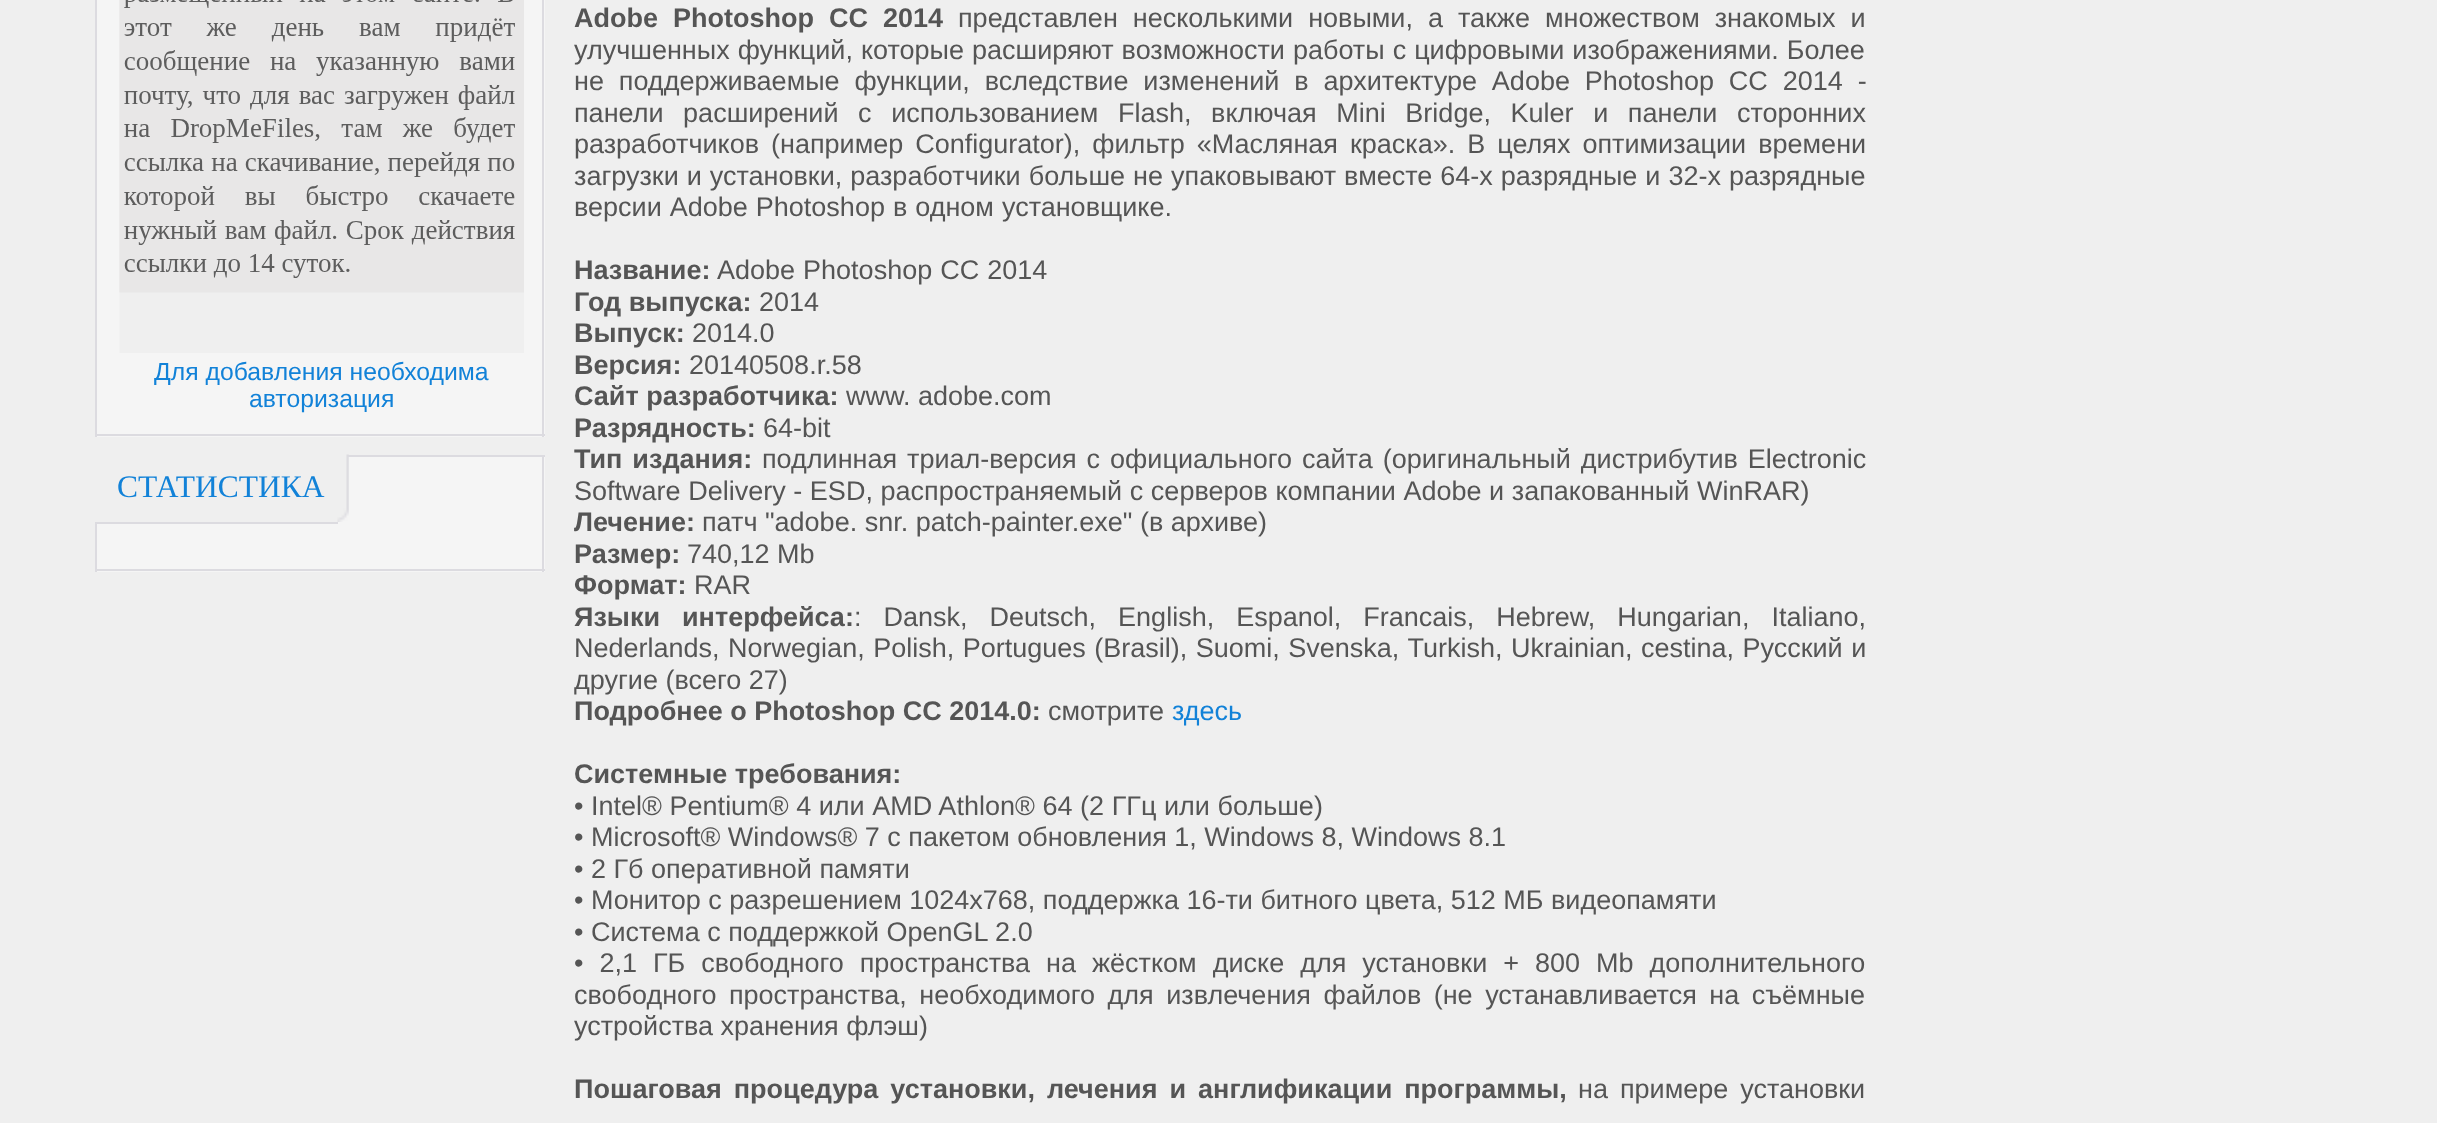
(async () => {
const canvas = document.querySelector("canvas")
canvas.width = 2437
canvas.height = 1123
const c = canvas.getContext("2d")
c.miterLimit = 4
c.fontKerning = "normal"
function T(s,x,y){c.fillText(s,x,y)}
function R(x,y,w,h){c.fillRect(x,y,w,h)}
async function I(src,x,y,w,h){const img=new Image();img.src=src;await img.decode();c.drawImage(img,x,y,w,h)}
c.fillStyle="#efefef"
R(0,0,2437,1123)
c.fillStyle="#f5f5f5"
R(97,0,448,437)
c.fillStyle="#dcdbe0"
R(542,0,2,437)
R(95,434,450,2)
R(95,0,2,437)
await I("1.png",119,0,405,353)
c.font="24.75px Liberation Sans"
c.fillStyle="#1282d8"
T("Для добавления необходима",154,380)
T("авторизация",249,407)
c.fillStyle="#f5f5f5"
R(97,457,448,115)
c.fillStyle="#dcdbe0"
R(348,455,197,2)
R(542,455,2,117)
c.fillStyle="#efefef"
R(97,457,241,65)
c.fillStyle="#dcdbe0"
R(95,522,243,2)
c.font="31.5px Liberation Serif"
c.fillStyle="#1282d8"
T("СТАТИСТИКА",117,497)
await I("2.png",337,454,12,68)
c.fillStyle="#dcdbe0"
R(95,569,450,2)
R(95,524,2,48)
c.wordSpacing="7.5px"
c.font="bold 27px Liberation Sans"
c.fillStyle="#555"
T("Adobe Photoshop CC 2014",574,27)
c.font="27px Liberation Sans"
T("представлен несколькими новыми, а также множеством знакомых и",958,27)
c.wordSpacing="0.5px"
T("улучшенных функций, которые расширяют возможности работы с цифровыми изображениями. Более",574,59)
c.wordSpacing="7.4px"
T("не поддерживаемые функции, вследствие изменений в архитектуре Adobe Photoshop CC 2014 -",574,90)
c.wordSpacing="12.1px"
T("панели расширений с использованием Flash, включая Mini Bridge, Kuler и панели сторонних",574,122)
c.wordSpacing="4.5px"
T("разработчиков (например Configurator), фильтр «Масляная краска». В целях оптимизации времени",574,153)
c.wordSpacing="0.5px"
T("загрузки и установки, разработчики больше не упаковывают вместе 64-х разрядные и 32-х разрядные",574,185)
T("версии Adobe Photoshop в одном установщике.",574,216)
c.wordSpacing="0px"
c.font="bold 27px Liberation Sans"
T("Название:",574,279)
c.wordSpacing="0.5px"
c.font="27px Liberation Sans"
T("Adobe Photoshop CC 2014",717,279)
c.wordSpacing="0px"
c.font="bold 27px Liberation Sans"
T("Год выпуска:",574,311)
c.font="27px Liberation Sans"
T("2014",759,311)
c.font="bold 27px Liberation Sans"
T("Выпуск:",574,342)
c.font="27px Liberation Sans"
T("2014.0",692,342)
c.font="bold 27px Liberation Sans"
T("Версия:",574,374)
c.font="27px Liberation Sans"
T("20140508.r.58",689,374)
c.font="bold 27px Liberation Sans"
T("Сайт разработчика:",574,405)
c.font="27px Liberation Sans"
T("www. adobe.com",846,405)
c.font="bold 27px Liberation Sans"
T("Разрядность:",574,437)
c.font="27px Liberation Sans"
T("64-bit",763,437)
c.wordSpacing="2.5px"
c.font="bold 27px Liberation Sans"
T("Тип издания:",574,468)
c.font="27px Liberation Sans"
T("подлинная триал-версия с официального сайта (оригинальный дистрибутив Electronic",762,468)
c.wordSpacing="0.1px"
T("Software Delivery - ESD, распространяемый с серверов компании Adobe и запакованный WinRAR)",574,500)
c.wordSpacing="0px"
c.font="bold 27px Liberation Sans"
T("Лечение:",574,531)
c.font="27px Liberation Sans"
T("патч \"adobe. snr. patch-painter.exe\" (в архиве)",702,531)
c.font="bold 27px Liberation Sans"
T("Размер:",574,563)
c.font="27px Liberation Sans"
T("740,12 Mb",687,563)
c.font="bold 27px Liberation Sans"
T("Формат:",574,594)
c.font="27px Liberation Sans"
T("RAR",694,594)
c.wordSpacing="14.5px"
c.font="bold 27px Liberation Sans"
T("Языки интерфейса:",574,626)
c.font="27px Liberation Sans"
T(": Dansk, Deutsch, English, Espanol, Francais, Hebrew, Hungarian, Italiano,",854,626)
c.wordSpacing="1px"
T("Nederlands, Norwegian, Polish, Portugues (Brasil), Suomi, Svenska, Turkish, Ukrainian, cestina, Русский и",574,657)
c.wordSpacing="0px"
T("другие (всего 27)",574,689)
c.font="bold 27px Liberation Sans"
T("Подробнее о Photoshop CC 2014.0:",574,720)
c.font="27px Liberation Sans"
T("смотрите",1048,720)
c.fillStyle="#1282d8"
T("здесь",1172,720)
c.font="bold 27px Liberation Sans"
c.fillStyle="#555"
T("Системные требования:",574,783)
c.wordSpacing="0.1px"
c.font="27px Liberation Sans"
T("• Intel® Pentium® 4 или AMD Athlon® 64 (2 ГГц или больше)",574,815)
c.wordSpacing="0px"
T("• Microsoft® Windows® 7 с пакетом обновления 1, Windows 8, Windows 8.1",574,846)
T("• 2 Гб оперативной памяти",574,878)
T("• Монитор с разрешением 1024x768, поддержка 16-ти битного цвета, 512 МБ видеопамяти",574,909)
T("• Система с поддержкой OpenGL 2.0",574,941)
c.wordSpacing="8.5px"
T("• 2,1 ГБ свободного пространства на жёстком диске для установки + 800 Mb дополнительного",574,972)
c.wordSpacing="5px"
T("свободного пространства, необходимого для извлечения файлов (не устанавливается на съёмные",574,1004)
c.wordSpacing="0px"
T("устройства хранения флэш)",574,1035)
c.wordSpacing="4.5px"
c.font="bold 27px Liberation Sans"
T("Пошаговая процедура установки, лечения и англификации программы,",574,1098)
c.font="27px Liberation Sans"
T("на примере установки",1578,1098)
})()
